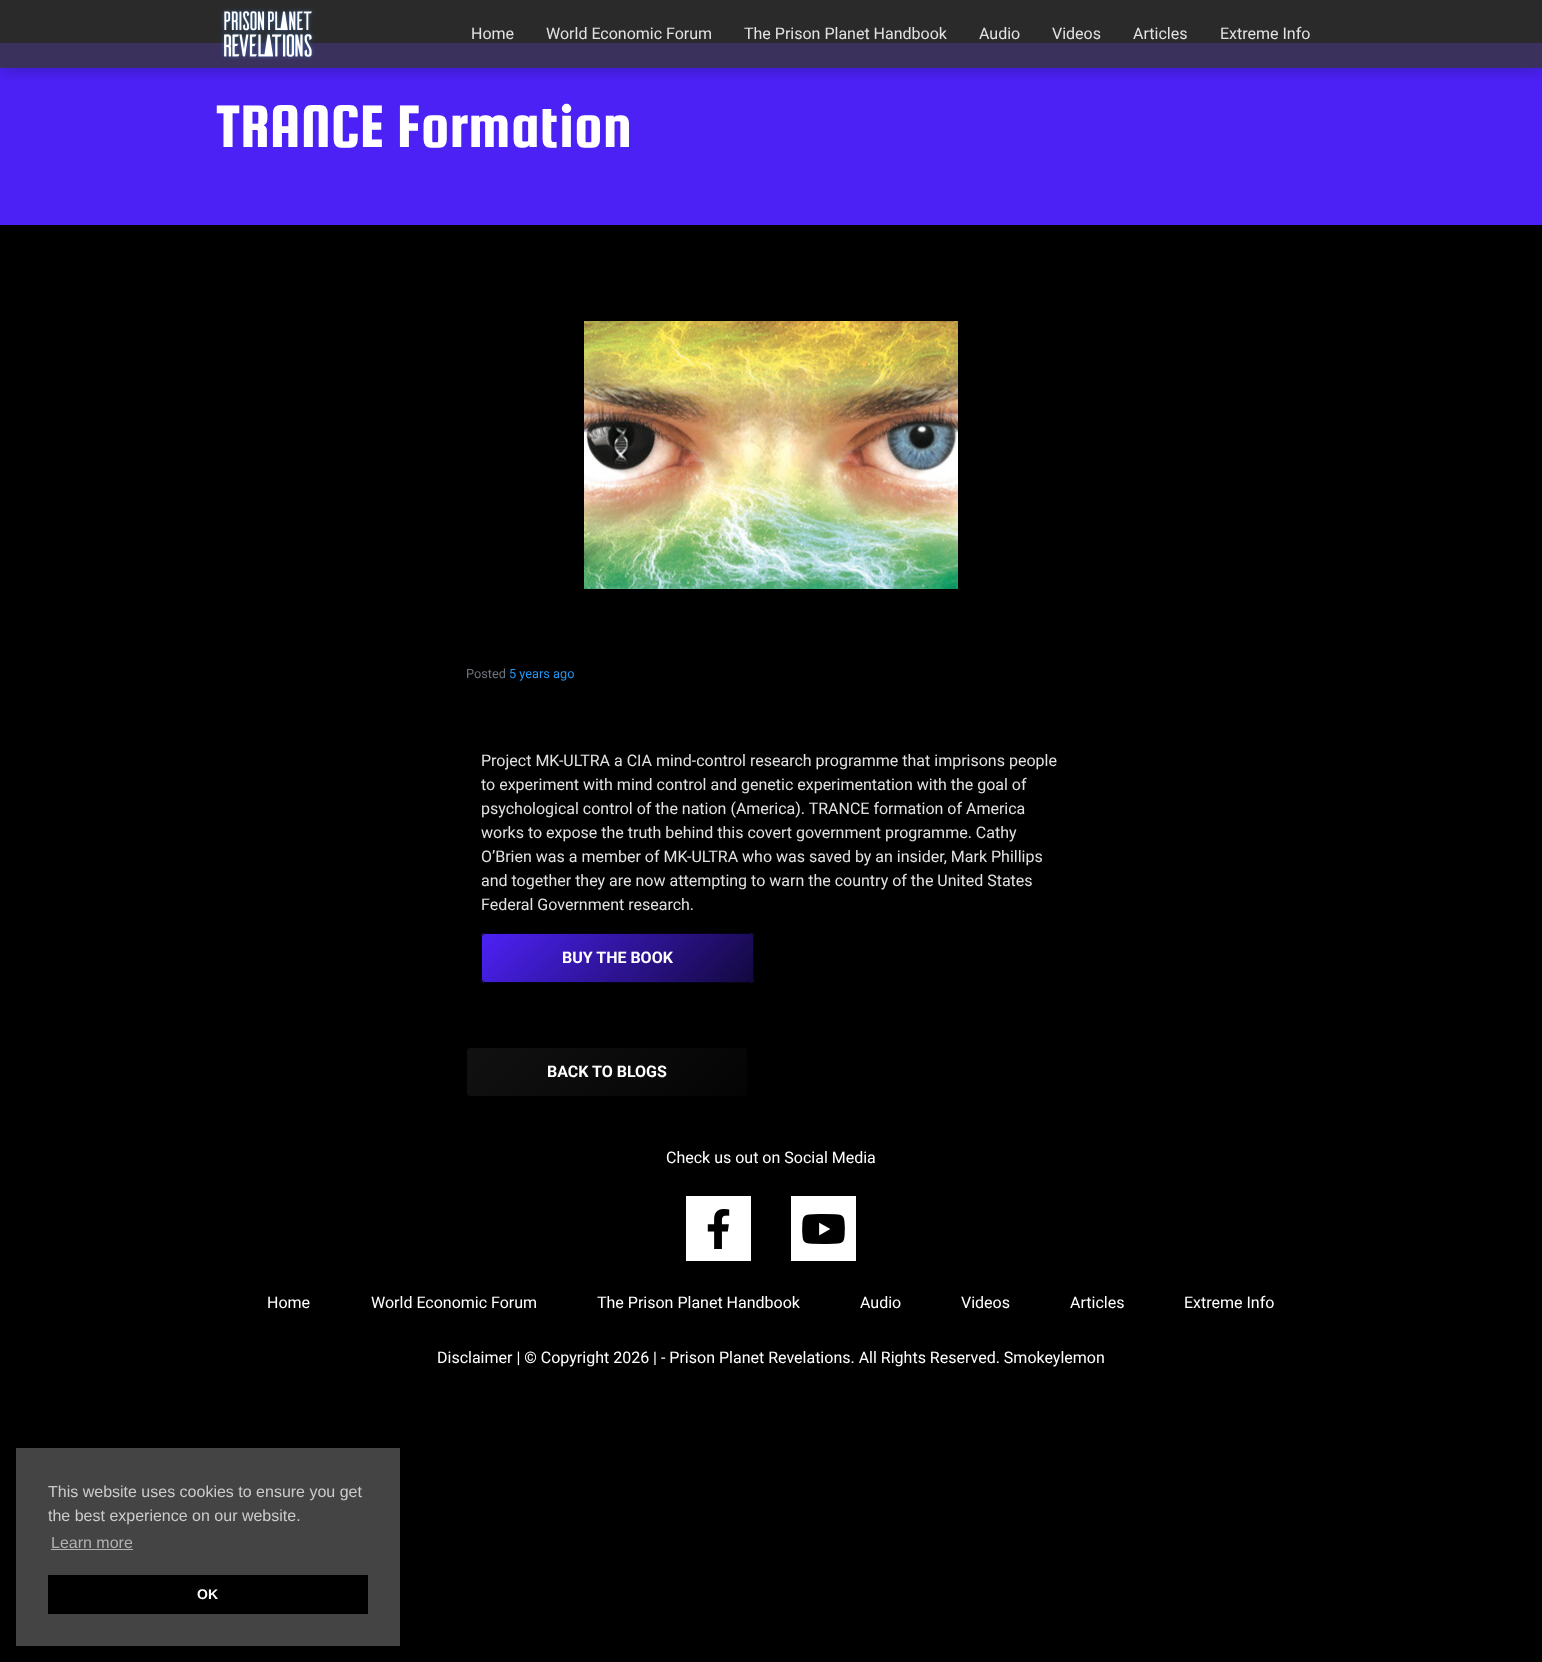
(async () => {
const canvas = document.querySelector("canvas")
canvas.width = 1542
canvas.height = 1662
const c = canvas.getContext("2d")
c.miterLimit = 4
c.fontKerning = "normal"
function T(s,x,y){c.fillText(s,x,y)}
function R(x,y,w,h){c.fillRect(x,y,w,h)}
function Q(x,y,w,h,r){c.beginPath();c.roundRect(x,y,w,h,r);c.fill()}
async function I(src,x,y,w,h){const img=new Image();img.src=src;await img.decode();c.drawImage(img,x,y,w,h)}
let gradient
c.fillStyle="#000"
R(0,0,1542,1662)
c.fillStyle="#2a2a2a"
R(0,0,1542,43)
c.fillStyle="#4c21f6"
R(0,68,1542,157)
c.fillStyle="#3a315c"
R(0,43,1542,25)
c.save()
c.beginPath()
c.rect(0,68,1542,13)
c.clip()
c.fillStyle="#00000033"
c.filter="blur(7.5px)"
c.beginPath()
c.rect(0,3,1542,68)
c.fill()
c.filter="none"
c.restore()
await I("1.png",220,8,95,52)
c.font="16px Roboto"
c.fillStyle="#e2e2e2"
T("Home",471,39)
T("World Economic Forum",546,39)
T("The Prison Planet Handbook",744,39)
T("Audio",979,39)
T("Videos",1052,39)
T("Articles",1133,39)
T("Extreme Info",1220,39)
c.font="64px Squada One"
c.fillStyle="#fff"
T("TRANCE Formation",216,147)
await I("2.png",584,321,374,268)
c.font="12.75px Roboto"
c.fillStyle="#6c757d"
T("Posted",466,678)
c.fillStyle="#2196f3"
T("5 years ago",509,678)
c.font="16px Roboto"
c.fillStyle="#e2e2e2"
T("Project MK-ULTRA a CIA mind-control research programme that imprisons people",481,766)
T("to experiment with mind control and genetic experimentation with the goal of",481,790)
T("psychological control of the nation (America). TRANCE formation of America",481,814)
T("works to expose the truth behind this covert government programme. Cathy",481,838)
T("O’Brien was a member of MK-ULTRA who was saved by an insider, Mark Phillips",481,862)
T("and together they are now attempting to warn the country of the United States",481,886)
T("Federal Government research.",481,910)
c.fillStyle="#4c21f6"
Q(481,933,273,50,4)
gradient = c.createLinearGradient(538,878,697,1038)
gradient.addColorStop(0,"#13083e00")
gradient.addColorStop(1,"#13083e")
c.fillStyle = gradient
R(482,934,271,48)
c.beginPath()
c.roundRect(481.5,933.5,272,49,3.5)
c.strokeStyle="#050117"
c.stroke()
c.font="bold 16px Roboto"
c.fillStyle="#fff"
T("BUY THE BOOK",562,963)
c.save()
c.beginPath()
c.roundRect(466,1047,282,50,4)
c.clip()
gradient = c.createLinearGradient(525,990,689,1154)
gradient.addColorStop(0,"#111")
gradient.addColorStop(1,"#040404")
c.fillStyle = gradient
R(467,1048,280,48)
c.restore()
c.beginPath()
c.roundRect(466.5,1047.5,281,49,3.5)
c.strokeStyle="#000"
c.stroke()
T("BACK TO BLOGS",547,1077)
c.font="16px Roboto"
T("Check us out on Social Media",666,1163)
R(686,1196,65,65)
await I("3.png",707,1209,23,40)
R(791,1196,65,65)
await I("4.png",802,1214,43,30)
T("Home",267,1308)
T("World Economic Forum",371,1308)
T("The Prison Planet Handbook",597,1308)
T("Audio",860,1308)
T("Videos",961,1308)
T("Articles",1070,1308)
T("Extreme Info",1184,1308)
T("Disclaimer | © Copyright 2026 | - Prison Planet Revelations. All Rights Reserved. Smokeylemon",437,1363)
c.fillStyle="#444"
R(16,1448,384,198)
c.font="16px Liberation Sans"
c.fillStyle="#ccc"
T("This website uses cookies to ensure you get",48,1497)
T("the best experience on our website.",48,1521)
c.fillStyle="#b1b1b1"
T("Learn more",51,1548)
R(51,1549,82,1)
c.fillStyle="#000"
R(48,1575,320,39)
c.font="bold 14px Liberation Sans"
c.fillStyle="#fff"
T("OK",197,1599)
})()
